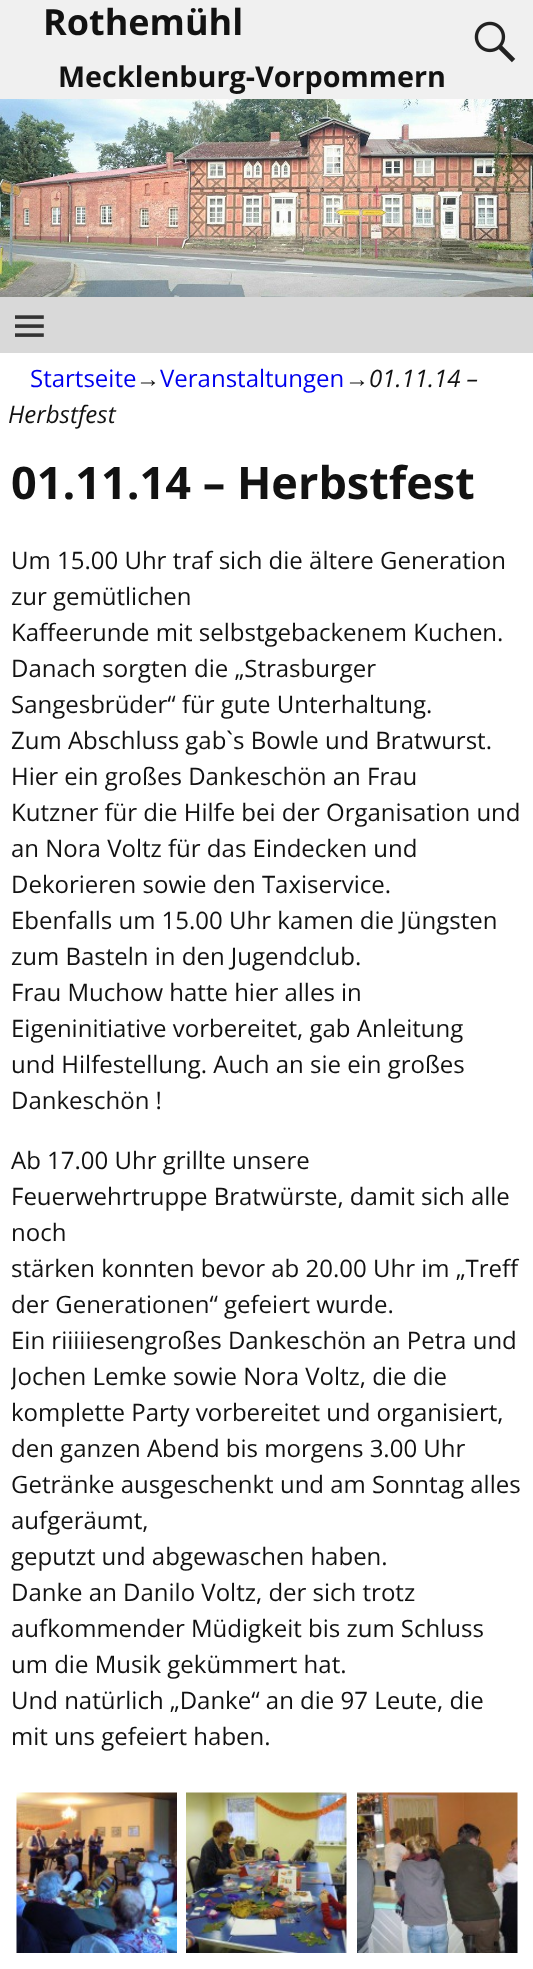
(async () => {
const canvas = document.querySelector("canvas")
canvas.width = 533
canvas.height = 1969
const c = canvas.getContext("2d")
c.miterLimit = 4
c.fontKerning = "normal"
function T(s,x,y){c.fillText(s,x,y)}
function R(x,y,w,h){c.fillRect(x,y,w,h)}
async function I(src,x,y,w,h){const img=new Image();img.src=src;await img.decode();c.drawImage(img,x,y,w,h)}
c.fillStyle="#fff"
R(0,0,533,1969)
c.fillStyle="#f0f0f0"
R(0,0,533,99)
c.font="bold 36px Open Sans"
c.fillStyle="#121212"
T("Rothemühl",43,35)
await I("1.png",474,21,42,42)
c.font="bold 28.75px Open Sans"
T("Mecklenburg-Vorpommern",58,87)
await I("2.png",0,99,533,198)
c.fillStyle="#d9d9d9"
R(0,297,533,56)
await I("3.png",15,315,29,22)
c.font="24px Open Sans"
c.fillStyle="#00e"
T("Startseite",30,387)
c.font="24px Liberation Sans"
c.fillStyle="#121212"
T("→",136,387)
c.font="24px Open Sans"
c.fillStyle="#00e"
T("Veranstaltungen",160,387)
c.font="24px Liberation Sans"
c.fillStyle="#121212"
T("→",345,387)
c.font="italic 24px Open Sans"
T("01.11.14 –",369,387)
T("Herbstfest",8,423)
c.font="bold 45px Open Sans"
T("01.11.14 – Herbstfest",11,499)
c.font="24px Open Sans"
T("Um 15.00 Uhr traf sich die ältere Generation",11,569)
T("zur gemütlichen",11,605)
T("Kaffeerunde mit selbstgebackenem Kuchen.",11,641)
T("Danach sorgten die „Strasburger",11,677)
T("Sangesbrüder“ für gute Unterhaltung.",11,713)
T("Zum Abschluss gab`s Bowle und Bratwurst.",11,749)
T("Hier ein großes Dankeschön an Frau",11,785)
T("Kutzner für die Hilfe bei der Organisation und",11,821)
T("an Nora Voltz für das Eindecken und",11,857)
T("Dekorieren sowie den Taxiservice.",11,893)
T("Ebenfalls um 15.00 Uhr kamen die Jüngsten",11,929)
T("zum Basteln in den Jugendclub.",11,965)
T("Frau Muchow hatte hier alles in",11,1001)
T("Eigeninitiative vorbereitet, gab Anleitung",11,1037)
T("und Hilfestellung. Auch an sie ein großes",11,1073)
T("Dankeschön !",11,1109)
T("Ab 17.00 Uhr grillte unsere",11,1169)
T("Feuerwehrtruppe Bratwürste, damit sich alle",11,1205)
T("noch",11,1241)
T("stärken konnten bevor ab 20.00 Uhr im „Treff",11,1277)
T("der Generationen“ gefeiert wurde.",11,1313)
T("Ein riiiiiesengroßes Dankeschön an Petra und",11,1349)
c.save()
c.beginPath()
c.rect(11,446,513,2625)
c.clip()
T("Jochen Lemke sowie Nora Voltz, die die",11,1385)
c.restore()
T("komplette Party vorbereitet und organisiert,",11,1421)
T("den ganzen Abend bis morgens 3.00 Uhr",11,1457)
T("Getränke ausgeschenkt und am Sonntag alles",11,1493)
T("aufgeräumt,",11,1529)
T("geputzt und abgewaschen haben.",11,1565)
T("Danke an Danilo Voltz, der sich trotz",11,1601)
T("aufkommender Müdigkeit bis zum Schluss",11,1637)
T("um die Musik gekümmert hat.",11,1673)
T("Und natürlich „Danke“ an die 97 Leute, die",11,1709)
T("mit uns gefeiert haben.",11,1745)
await I("4.png",16,1792,161,161)
await I("5.png",186,1792,161,161)
await I("6.png",357,1792,161,161)
})()
